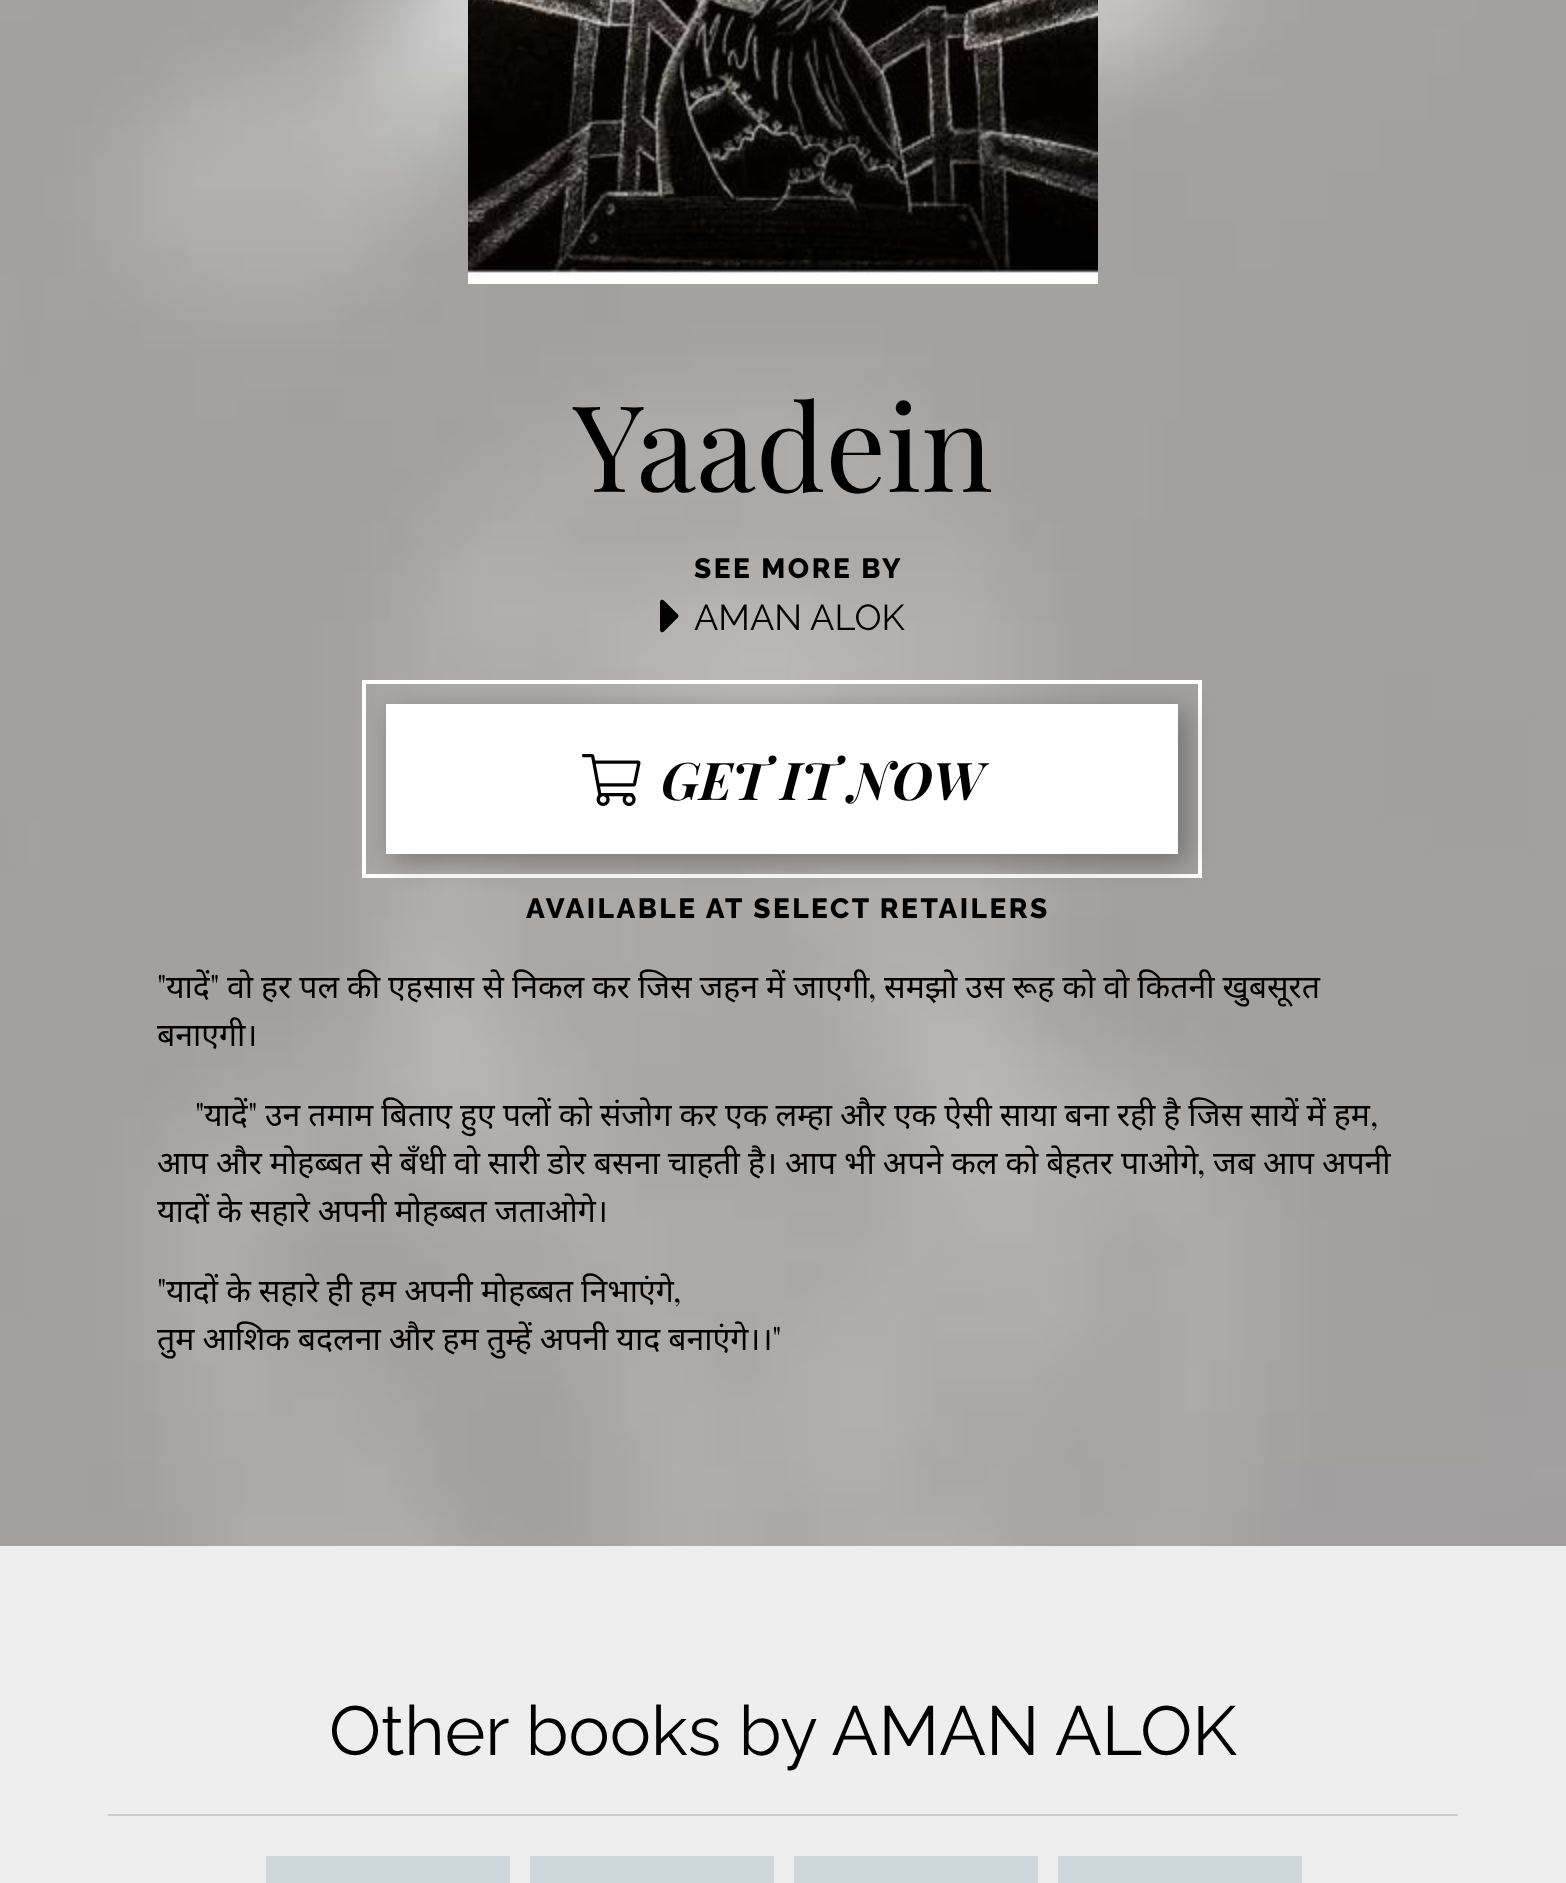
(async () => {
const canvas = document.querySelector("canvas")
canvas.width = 1566
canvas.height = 1883
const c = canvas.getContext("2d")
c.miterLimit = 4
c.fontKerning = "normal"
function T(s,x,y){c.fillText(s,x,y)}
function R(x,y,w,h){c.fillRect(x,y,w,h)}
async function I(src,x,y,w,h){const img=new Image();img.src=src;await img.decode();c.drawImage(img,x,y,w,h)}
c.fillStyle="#fff"
R(0,0,1566,1883)
await I("1.png",0,0,1566,1546)
await I("2.png",468,0,630,284)
c.font="120px Playfair Display"
c.fillStyle="#000"
T("Yaadein",573,492)
await I("3.png",660,599,19,34)
c.letterSpacing="2.5px"
c.font="800 28px Raleway"
T("SEE MORE BY",694,578)
c.letterSpacing="0px"
c.font="36px Raleway"
T("AMAN ALOK",694,630)
c.strokeStyle="#fff"
c.lineWidth=4
c.strokeRect(364,682,836,194)
c.fillStyle="#0000004d"
c.filter="blur(14px)"
c.beginPath()
c.rect(394,712,792,150)
c.fill()
c.filter="none"
c.fillStyle="#fff"
R(386,704,792,150)
await I("4.png",582,754,59,52)
c.font="italic bold 52px Playfair Display"
c.fillStyle="#000"
T("GET IT NOW",661,800)
c.letterSpacing="2.5px"
c.font="800 28px Raleway"
T("AVAILABLE AT SELECT RETAILERS",526,918)
c.letterSpacing="0px"
c.font="32px Playfair Display"
T("\"",157,998)
c.font="32px Noto Sans"
T("यादें",166,998)
c.font="32px Playfair Display"
T("\"",210,998)
c.wordSpacing="-0.3px"
c.font="32px Noto Sans"
T("वो हर पल की एहसास से निकल कर जिस जहन में जाएगी",227,998)
T("समझो उस रूह को वो कितनी खुबसूरत",884,998)
c.wordSpacing="0px"
c.font="32px Playfair Display"
T(",",868,998)
c.font="32px Noto Sans"
T("बनाएगी।",157,1046)
c.font="32px Playfair Display"
T("\"",195,1126)
c.font="32px Noto Sans"
T("यादें",204,1126)
c.font="32px Playfair Display"
T("\"",248,1126)
c.wordSpacing="-0.3px"
c.font="32px Noto Sans"
T("उन तमाम बिताए हुए पलों को संजोग कर एक लम्हा और एक ऐसी साया बना रही है जिस सायें में हम",265,1126)
c.wordSpacing="0px"
c.font="32px Playfair Display"
T(",",1370,1126)
c.wordSpacing="-0.3px"
c.font="32px Noto Sans"
T("आप और मोहब्बत से बँधी वो सारी डोर बसना चाहती है। आप भी अपने कल को बेहतर पाओगे",157,1174)
c.wordSpacing="0px"
c.font="32px Playfair Display"
T(",",1197,1174)
c.wordSpacing="-0.3px"
c.font="32px Noto Sans"
T("जब आप अपनी",1213,1174)
T("यादों के सहारे अपनी मोहब्बत जताओगे।",157,1222)
c.wordSpacing="0px"
c.font="32px Playfair Display"
T("\"",157,1302)
c.wordSpacing="-0.3px"
c.font="32px Noto Sans"
T("यादों के सहारे ही हम अपनी मोहब्बत निभाएंगे",166,1302)
c.wordSpacing="0px"
c.font="32px Playfair Display"
T(",",673,1302)
c.wordSpacing="-0.3px"
c.font="32px Noto Sans"
T("तुम आशिक बदलना और हम तुम्हें अपनी याद बनाएंगे।।",157,1350)
c.wordSpacing="0px"
c.font="32px Playfair Display"
T("\"",772,1350)
c.fillStyle="#eee"
R(0,1546,1566,82)
R(0,1628,1566,255)
c.font="69.3px Raleway"
c.fillStyle="#000"
T("Other books by AMAN ALOK",329,1755)
c.fillStyle="#ccc"
R(108,1814,1350,2)
c.fillStyle="#cfd8dc"
R(266,1856,244,27)
R(530,1856,244,27)
R(794,1856,244,27)
R(1058,1856,244,27)
})()
